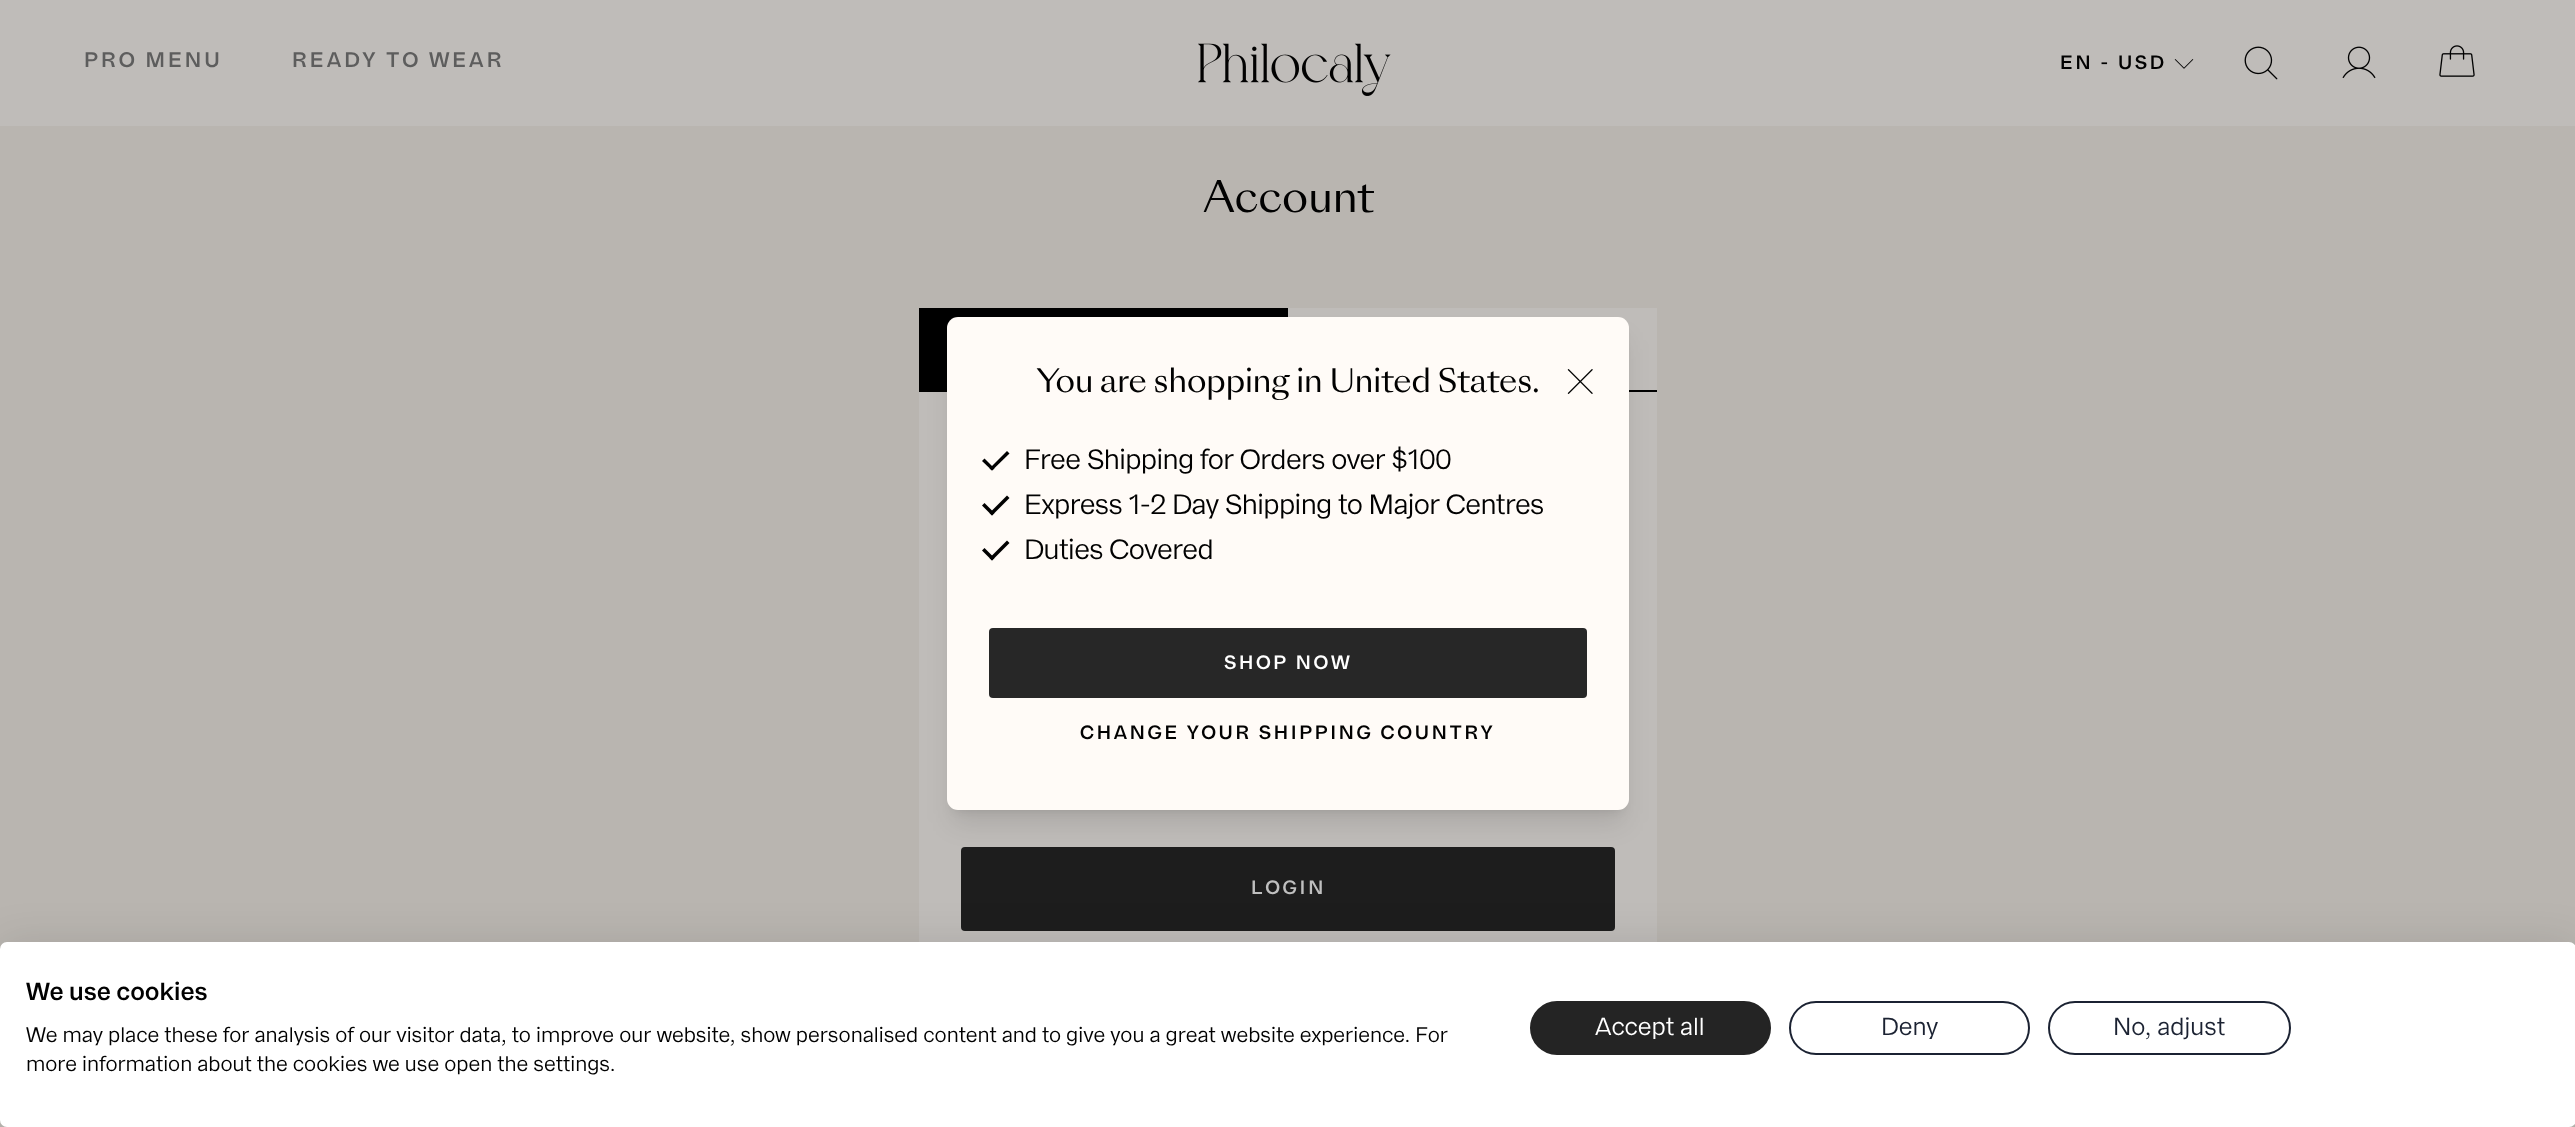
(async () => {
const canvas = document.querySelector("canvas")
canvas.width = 2575
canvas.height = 1127
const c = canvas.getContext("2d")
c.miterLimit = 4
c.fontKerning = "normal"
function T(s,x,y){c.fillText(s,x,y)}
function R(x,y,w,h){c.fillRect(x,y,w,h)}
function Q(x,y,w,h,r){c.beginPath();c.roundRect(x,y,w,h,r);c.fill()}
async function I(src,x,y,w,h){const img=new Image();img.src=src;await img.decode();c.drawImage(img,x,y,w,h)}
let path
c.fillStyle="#b9b5b0"
R(0,0,2575,1127)
c.fillStyle="#bfbcb9"
R(0,0,2575,126)
c.letterSpacing="3px"
c.font="600 21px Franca"
c.fillStyle="#5d5d5d"
T("PRO MENU",84,67)
T("READY TO WEAR",292,67)
await I("1.png",1198,43,193,53)
c.letterSpacing="2.7px"
c.font="600 19.25px Franca"
c.fillStyle="#010101"
T("EN - USD",2060,69)
await I("2.png",2174,59,20,10)
await I("3.png",2244,46,34,34)
await I("4.png",2342,46,34,33)
await I("5.png",2439,45,36,32)
c.letterSpacing="-0.55px"
c.font="42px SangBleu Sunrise"
T("Account",1203,212)
c.fillStyle="#bfbcb9"
R(1288,308,369,82)
c.fillStyle="#000"
R(919,308,369,82)
c.fillStyle="#010101"
R(919,390,28,2)
R(1629,390,28,2)
c.fillStyle="#bfbcb9"
R(919,392,738,550)
c.fillStyle="#1d1d1d"
Q(961,847,654,84,4)
c.letterSpacing="2.7px"
c.font="600 19.25px Franca"
c.fillStyle="#bfbfbf"
T("LOGIN",1251,894)
c.fillStyle="#0000001a"
c.filter="blur(5px)"
c.beginPath()
c.roundRect(954,331,668,479,4)
c.fill()
c.filter="none"
c.filter="blur(13px)"
c.beginPath()
c.roundRect(952,340,672,483,5)
c.fill()
c.filter="none"
c.fillStyle="#fffbf7"
Q(947,317,682,493,11)
c.letterSpacing="-0.55px"
c.font="31.5px SangBleu Sunrise"
c.fillStyle="#010101"
T("You are shopping in United States.",1036,392)
await I("6.png",1567,369,26,25)
path = new Path2D("M1007 451l2.5 2.5l-17.5 17l-2.5-2z")
c.fill(path)
path = new Path2D("M984.5 458.5l10 10l-2.5 2l-10-9.5z")
c.fill(path)
c.font="28px Franca"
T("Free Shipping for Orders over $100",1024,469)
path = new Path2D("M1007 495.5l2.5 2.5l-17.5 17.5l-2.5-2.5z")
c.fill(path)
path = new Path2D("M984.5 503l10 10l-2.5 2.5l-10-10z")
c.fill(path)
T("Express 1-2 Day Shipping to Major Centres",1024,514)
path = new Path2D("M1007 540.5l2.5 2.5l-17.5 17.5l-2.5-2.5z")
c.fill(path)
path = new Path2D("M984.5 548l10 10l-2.5 2.5l-10-10z")
c.fill(path)
T("Duties Covered",1024,559)
c.fillStyle="#272727"
Q(989,628,598,70,4)
c.letterSpacing="2.7px"
c.font="600 19.25px Franca"
c.fillStyle="#fff"
T("SHOP NOW",1224,669)
c.fillStyle="#010101"
T("CHANGE YOUR SHIPPING COUNTRY",1080,739)
c.fillStyle="#0000001a"
c.filter="blur(21px)"
c.beginPath()
c.roundRect(0,942,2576,185,7)
c.fill()
c.filter="none"
c.fillStyle="#fff"
Q(0,942,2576,185,7)
c.letterSpacing="0px"
c.font="600 24.5px Franca"
c.fillStyle="#010101"
T("We use cookies",26,1000)
c.font="21px Franca"
T("We may place these for analysis of our visitor data, to improve our website, show personalised content and to give you a great website experience. For",26,1042)
T("more information about the cookies we use open the settings.",26,1071)
c.fillStyle="#242424"
c.beginPath()
c.roundRect(1531,1002,239,52,26)
c.fill()
c.strokeStyle="#242424"
c.lineWidth=2
c.stroke()
c.font="24.5px Franca"
c.fillStyle="#fff"
T("Accept all",1595,1035)
c.beginPath()
c.roundRect(1790,1002,239,52,26)
c.strokeStyle="#1b2232"
c.stroke()
c.fillStyle="#1b2232"
T("Deny",1881,1035)
c.beginPath()
c.roundRect(2049,1002,241,52,26)
c.stroke()
T("No, adjust",2113,1035)
})()
